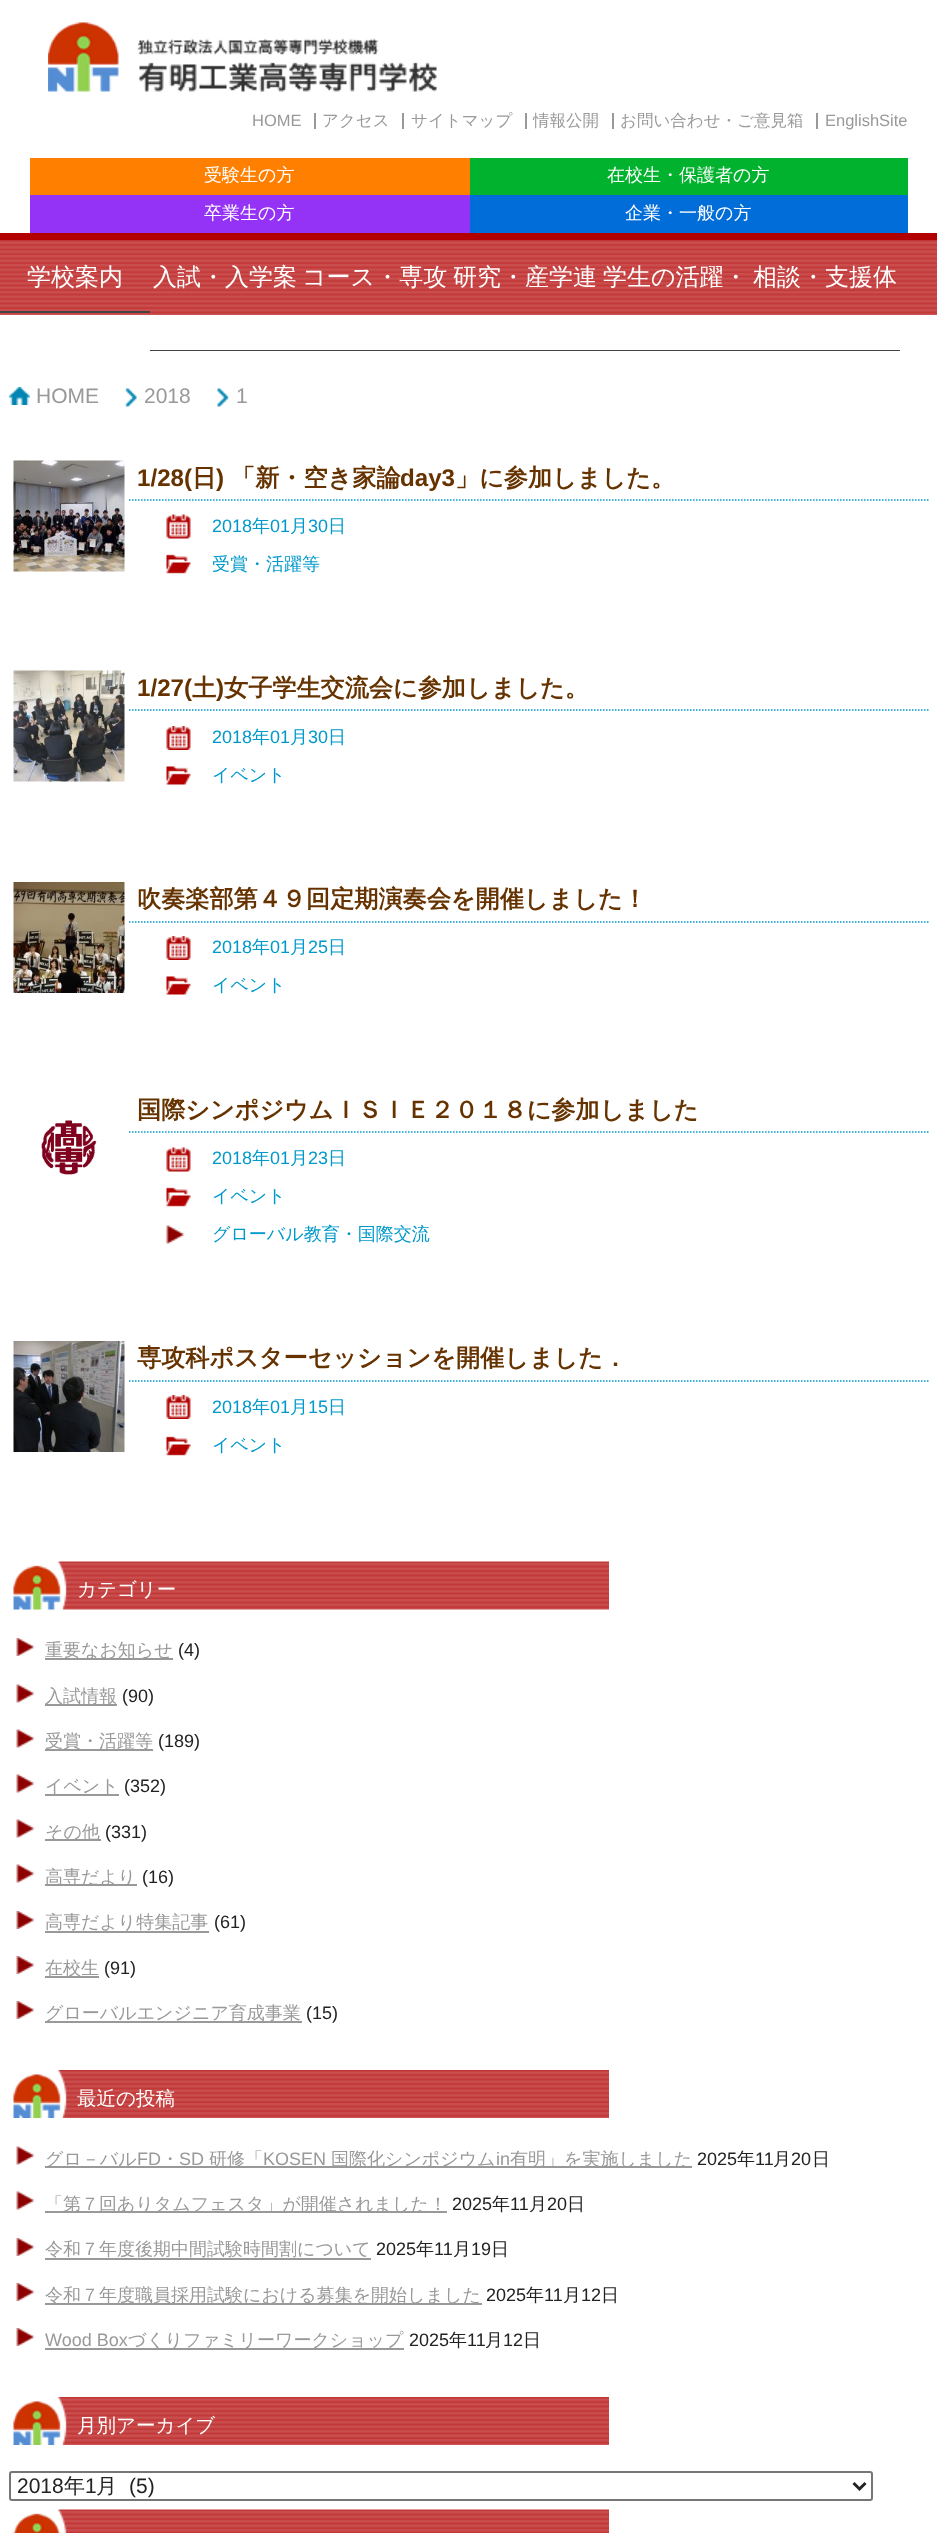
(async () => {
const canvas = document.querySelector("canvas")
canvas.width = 937
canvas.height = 2533
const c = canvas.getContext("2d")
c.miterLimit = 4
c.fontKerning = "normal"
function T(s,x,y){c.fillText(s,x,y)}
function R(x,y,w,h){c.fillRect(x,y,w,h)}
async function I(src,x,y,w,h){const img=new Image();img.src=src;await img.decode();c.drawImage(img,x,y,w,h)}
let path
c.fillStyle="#fff"
R(0,0,937,2533)
c.fillStyle="#b20000"
R(0,233,937,7)
await I("1.png",48,22,390,70)
c.font="16.5px Liberation Sans"
c.fillStyle="#999"
T("HOME",252,126)
R(314,113,2,16)
c.font="500 16.5px WenQuanYi Zen Hei"
T("アクセス",322,126)
R(402,113,2,16)
T("サイトマップ",411,126)
R(525,113,2,16)
T("情報公開",533,126)
R(612,113,2,16)
T("お問い合わせ・ご意見箱",620,126)
R(816,113,2,16)
c.font="16.5px Liberation Sans"
T("EnglishSite",825,126)
c.fillStyle="#ff8000"
R(30,158,440,37)
c.font="500 18px WenQuanYi Zen Hei"
c.fillStyle="#fff"
T("受験生の方",204,181)
c.fillStyle="#00b22d"
R(470,158,438,37)
c.fillStyle="#fff"
T("在校生・保護者の方",607,181)
c.fillStyle="#9432f5"
R(30,195,440,38)
c.fillStyle="#fff"
T("卒業生の方",204,219)
c.fillStyle="#006dd9"
R(470,195,438,38)
c.fillStyle="#fff"
T("企業・一般の方",625,219)
await I("2.png",0,240,937,75)
c.fillStyle="#444"
R(0,311,150,2)
c.font="500 24px WenQuanYi Zen Hei"
c.fillStyle="#fff"
T("学校案内",27,285)
c.fillStyle="#444"
R(150,350,750,1)
c.fillStyle="#fff"
T("入試・入学案",153,285)
T("コース・専攻",302,285)
T("研究・産学連",453,285)
T("学生の活躍・",603,285)
T("相談・支援体",753,285)
await I("3.png",9,387,21,18)
c.font="21px Liberation Sans"
c.fillStyle="#999"
T("HOME",36,403)
await I("4.png",125,388,12,19)
T("2018",144,403)
await I("5.png",217,388,12,19)
T("1",236,403)
path = new Path2D("M9 500h919.5")
c.strokeStyle="#09c"
c.lineWidth=1.5
c.setLineDash([1.5,1.5])
c.stroke(path)
c.strokeStyle="#fff"
c.lineWidth=5
c.setLineDash([])
c.strokeRect(11.5,458.5,115,115)
await I("6.png",13,460,112,112)
c.font="bold 24.15px Liberation Sans"
c.fillStyle="#630"
T("1/28(",137,486)
c.font="bold 24.15px WenQuanYi Zen Hei"
T("日",192,486)
c.font="bold 24.15px Liberation Sans"
T(")",216,486)
c.font="bold 24.15px WenQuanYi Zen Hei"
T("「新・空き家論",231,486)
c.font="bold 24.15px Liberation Sans"
T("day3",400,486)
c.font="bold 24.15px WenQuanYi Zen Hei"
T("」に参加しました。",455,486)
await I("7.png",166,514,25,25)
c.font="18px Liberation Sans"
c.fillStyle="#09c"
T("2018",212,532)
c.font="500 18px WenQuanYi Zen Hei"
T("年",252,532)
c.font="18px Liberation Sans"
T("01",270,532)
c.font="500 18px WenQuanYi Zen Hei"
T("月",290,532)
c.font="18px Liberation Sans"
T("30",308,532)
c.font="500 18px WenQuanYi Zen Hei"
T("日",328,532)
await I("8.png",166,554,25,20)
T("受賞・活躍等",212,570)
path = new Path2D("M9 710h919.5")
c.strokeStyle="#09c"
c.lineWidth=1.5
c.setLineDash([1.5,1.5])
c.stroke(path)
c.strokeStyle="#fff"
c.lineWidth=5
c.setLineDash([])
c.strokeRect(11.5,668.5,115,115)
await I("9.png",13,670,112,112)
c.font="bold 24.15px Liberation Sans"
c.fillStyle="#630"
T("1/27(",137,696)
c.font="bold 24.15px WenQuanYi Zen Hei"
T("土",192,696)
c.font="bold 24.15px Liberation Sans"
T(")",216,696)
c.font="bold 24.15px WenQuanYi Zen Hei"
T("女子学生交流会に参加しました。",224,696)
await I("10.png",166,726,25,24)
c.font="18px Liberation Sans"
c.fillStyle="#09c"
T("2018",212,743)
c.font="500 18px WenQuanYi Zen Hei"
T("年",252,743)
c.font="18px Liberation Sans"
T("01",270,743)
c.font="500 18px WenQuanYi Zen Hei"
T("月",290,743)
c.font="18px Liberation Sans"
T("30",308,743)
c.font="500 18px WenQuanYi Zen Hei"
T("日",328,743)
await I("11.png",166,766,25,19)
T("イベント",212,781)
path = new Path2D("M9 922h919.5")
c.strokeStyle="#09c"
c.lineWidth=1.5
c.setLineDash([1.5,1.5])
c.stroke(path)
c.strokeStyle="#fff"
c.lineWidth=5
c.setLineDash([])
c.strokeRect(11.5,880.5,115,115)
await I("12.png",13,882,112,111)
c.font="bold 24.15px WenQuanYi Zen Hei"
c.fillStyle="#630"
T("吹奏楽部第４９回定期演奏会を開催しました！",137,907)
await I("10.png",166,936,25,24)
c.font="18px Liberation Sans"
c.fillStyle="#09c"
T("2018",212,953)
c.font="500 18px WenQuanYi Zen Hei"
T("年",252,953)
c.font="18px Liberation Sans"
T("01",270,953)
c.font="500 18px WenQuanYi Zen Hei"
T("月",290,953)
c.font="18px Liberation Sans"
T("25",308,953)
c.font="500 18px WenQuanYi Zen Hei"
T("日",328,953)
await I("11.png",166,976,25,19)
T("イベント",212,991)
path = new Path2D("M9 1132h919.5")
c.strokeStyle="#09c"
c.lineWidth=1.5
c.setLineDash([1.5,1.5])
c.stroke(path)
c.strokeStyle="#fff"
c.lineWidth=5
c.setLineDash([])
c.strokeRect(11.5,1090.5,115,115)
await I("13.png",15,1120,109,55)
c.font="bold 24.15px WenQuanYi Zen Hei"
c.fillStyle="#630"
T("国際シンポジウムＩＳＩＥ２０１８に参加しました",137,1118)
await I("7.png",166,1147,25,25)
c.font="18px Liberation Sans"
c.fillStyle="#09c"
T("2018",212,1164)
c.font="500 18px WenQuanYi Zen Hei"
T("年",252,1164)
c.font="18px Liberation Sans"
T("01",270,1164)
c.font="500 18px WenQuanYi Zen Hei"
T("月",290,1164)
c.font="18px Liberation Sans"
T("23",308,1164)
c.font="500 18px WenQuanYi Zen Hei"
T("日",328,1164)
await I("8.png",166,1187,25,20)
T("イベント",212,1202)
await I("14.png",166,1225,19,19)
T("グローバル教育・国際交流",212,1240)
path = new Path2D("M9 1381h919.5")
c.strokeStyle="#09c"
c.lineWidth=1.5
c.setLineDash([1.5,1.5])
c.stroke(path)
c.strokeStyle="#fff"
c.lineWidth=5
c.setLineDash([])
c.strokeRect(11.5,1339.5,115,115)
await I("15.png",13,1341,112,111)
c.font="bold 24.15px WenQuanYi Zen Hei"
c.fillStyle="#630"
T("専攻科ポスターセッションを開催しました．",137,1366)
await I("10.png",166,1395,25,24)
c.font="18px Liberation Sans"
c.fillStyle="#09c"
T("2018",212,1413)
c.font="500 18px WenQuanYi Zen Hei"
T("年",252,1413)
c.font="18px Liberation Sans"
T("01",270,1413)
c.font="500 18px WenQuanYi Zen Hei"
T("月",290,1413)
c.font="18px Liberation Sans"
T("15",308,1413)
c.font="500 18px WenQuanYi Zen Hei"
T("日",328,1413)
await I("8.png",166,1436,25,20)
T("イベント",212,1451)
await I("16.png",13,1561,596,49)
c.font="500 19.5px WenQuanYi Zen Hei"
c.fillStyle="#fff"
T("カテゴリー",77,1596)
await I("17.png",16,1638,19,18)
c.fillStyle="#999"
R(45,1658,128,2)
c.font="500 18px WenQuanYi Zen Hei"
T("重要なお知らせ",45,1656)
c.font="18px Liberation Sans"
c.fillStyle="#222"
T("(4)",178,1656)
await I("14.png",16,1684,19,19)
c.fillStyle="#999"
R(45,1704,72,2)
c.font="500 18px WenQuanYi Zen Hei"
T("入試情報",45,1702)
c.font="18px Liberation Sans"
c.fillStyle="#222"
T("(90)",122,1702)
await I("14.png",16,1729,19,19)
c.fillStyle="#999"
R(45,1749,108,2)
c.font="500 18px WenQuanYi Zen Hei"
T("受賞・活躍等",45,1747)
c.font="18px Liberation Sans"
c.fillStyle="#222"
T("(189)",158,1747)
await I("14.png",16,1774,19,19)
c.fillStyle="#999"
R(45,1794,74,2)
c.font="500 18px WenQuanYi Zen Hei"
T("イベント",45,1792)
c.font="18px Liberation Sans"
c.fillStyle="#222"
T("(352)",124,1792)
await I("14.png",16,1819,19,19)
c.fillStyle="#999"
R(45,1839,56,2)
c.font="500 18px WenQuanYi Zen Hei"
T("その他",45,1838)
c.font="18px Liberation Sans"
c.fillStyle="#222"
T("(331)",105,1838)
await I("14.png",16,1864,19,19)
c.fillStyle="#999"
R(45,1884,92,2)
c.font="500 18px WenQuanYi Zen Hei"
T("高専だより",45,1883)
c.font="18px Liberation Sans"
c.fillStyle="#222"
T("(16)",142,1883)
await I("17.png",16,1911,19,18)
c.font="500 18px WenQuanYi Zen Hei"
c.fillStyle="#999"
T("高専だより特集記事",45,1928)
R(45,1931,164,2)
c.font="18px Liberation Sans"
c.fillStyle="#222"
T("(61)",214,1928)
await I("17.png",16,1956,19,18)
c.fillStyle="#999"
R(45,1976,54,2)
c.font="500 18px WenQuanYi Zen Hei"
T("在校生",45,1974)
c.font="18px Liberation Sans"
c.fillStyle="#222"
T("(91)",104,1974)
await I("17.png",16,2001,19,18)
c.fillStyle="#999"
R(45,2021,257,2)
c.font="500 18px WenQuanYi Zen Hei"
T("グローバルエンジニア育成事業",45,2019)
c.font="18px Liberation Sans"
c.fillStyle="#222"
T("(15)",306,2019)
await I("18.png",13,2070,596,48)
c.font="500 19.5px WenQuanYi Zen Hei"
c.fillStyle="#fff"
T("最近の投稿",77,2105)
await I("14.png",16,2146,19,19)
c.fillStyle="#999"
R(45,2166,647,2)
c.font="500 18px WenQuanYi Zen Hei"
T("グロ－バル",45,2165)
c.font="18px Liberation Sans"
T("FD",137,2165)
c.font="500 18px WenQuanYi Zen Hei"
T("・",161,2165)
c.font="18px Liberation Sans"
T("SD",179,2165)
c.font="500 18px WenQuanYi Zen Hei"
T("研修「",209,2165)
c.font="18px Liberation Sans"
T("KOSEN",263,2165)
c.font="500 18px WenQuanYi Zen Hei"
T("国際化シンポジウム",331,2165)
c.font="18px Liberation Sans"
T("in",496,2165)
c.font="500 18px WenQuanYi Zen Hei"
T("有明」を実施しました",510,2165)
c.font="18px Liberation Sans"
c.fillStyle="#222"
T("2025",697,2165)
c.font="500 18px WenQuanYi Zen Hei"
T("年",737,2165)
c.font="18px Liberation Sans"
T("11",755,2165)
c.font="500 18px WenQuanYi Zen Hei"
T("月",773,2165)
c.font="18px Liberation Sans"
T("20",791,2165)
c.font="500 18px WenQuanYi Zen Hei"
T("日",812,2165)
await I("14.png",16,2191,19,19)
c.fillStyle="#999"
R(45,2211,402,2)
T("「第７回ありタムフェスタ」が開催されました！",45,2210)
c.font="18px Liberation Sans"
c.fillStyle="#222"
T("2025",452,2210)
c.font="500 18px WenQuanYi Zen Hei"
T("年",492,2210)
c.font="18px Liberation Sans"
T("11",510,2210)
c.font="500 18px WenQuanYi Zen Hei"
T("月",529,2210)
c.font="18px Liberation Sans"
T("20",547,2210)
c.font="500 18px WenQuanYi Zen Hei"
T("日",567,2210)
await I("17.png",16,2238,19,18)
c.fillStyle="#999"
T("令和７年度後期中間試験時間割について",45,2255)
R(45,2258,326,2)
c.font="18px Liberation Sans"
c.fillStyle="#222"
T("2025",376,2255)
c.font="500 18px WenQuanYi Zen Hei"
T("年",416,2255)
c.font="18px Liberation Sans"
T("11",434,2255)
c.font="500 18px WenQuanYi Zen Hei"
T("月",453,2255)
c.font="18px Liberation Sans"
T("19",471,2255)
c.font="500 18px WenQuanYi Zen Hei"
T("日",491,2255)
await I("17.png",16,2283,19,18)
c.fillStyle="#999"
R(45,2303,437,2)
T("令和７年度職員採用試験における募集を開始しました",45,2301)
c.font="18px Liberation Sans"
c.fillStyle="#222"
T("2025",486,2301)
c.font="500 18px WenQuanYi Zen Hei"
T("年",526,2301)
c.font="18px Liberation Sans"
T("11",544,2301)
c.font="500 18px WenQuanYi Zen Hei"
T("月",563,2301)
c.font="18px Liberation Sans"
T("12",581,2301)
c.font="500 18px WenQuanYi Zen Hei"
T("日",601,2301)
await I("17.png",16,2328,19,18)
c.font="18px Liberation Sans"
c.fillStyle="#999"
T("Wood Box",45,2346)
R(45,2348,359,2)
c.font="500 18px WenQuanYi Zen Hei"
T("づくりファミリーワークショップ",128,2346)
c.font="18px Liberation Sans"
c.fillStyle="#222"
T("2025",409,2346)
c.font="500 18px WenQuanYi Zen Hei"
T("年",449,2346)
c.font="18px Liberation Sans"
T("11",467,2346)
c.font="500 18px WenQuanYi Zen Hei"
T("月",485,2346)
c.font="18px Liberation Sans"
T("12",503,2346)
c.font="500 18px WenQuanYi Zen Hei"
T("日",523,2346)
await I("18.png",13,2397,596,48)
c.font="500 19.5px WenQuanYi Zen Hei"
c.fillStyle="#fff"
T("月別アーカイブ",77,2432)
c.beginPath()
c.roundRect(10,2472,862,28,2)
c.strokeStyle="#767676"
c.lineWidth=2
c.stroke()
path = new Path2D("M853.5 2483l6 6l6-6")
c.strokeStyle="#222"
c.lineWidth=3
c.stroke(path)
c.font="21px Liberation Sans"
c.fillStyle="#222"
T("2018",17,2493)
c.font="500 21px WenQuanYi Zen Hei"
T("年",64,2493)
c.font="21px Liberation Sans"
T("1",85,2493)
c.font="500 21px WenQuanYi Zen Hei"
T("月",96,2493)
c.font="21px Liberation Sans"
T("(5)",129,2493)
await I("19.png",13,2509,596,24)
})()
